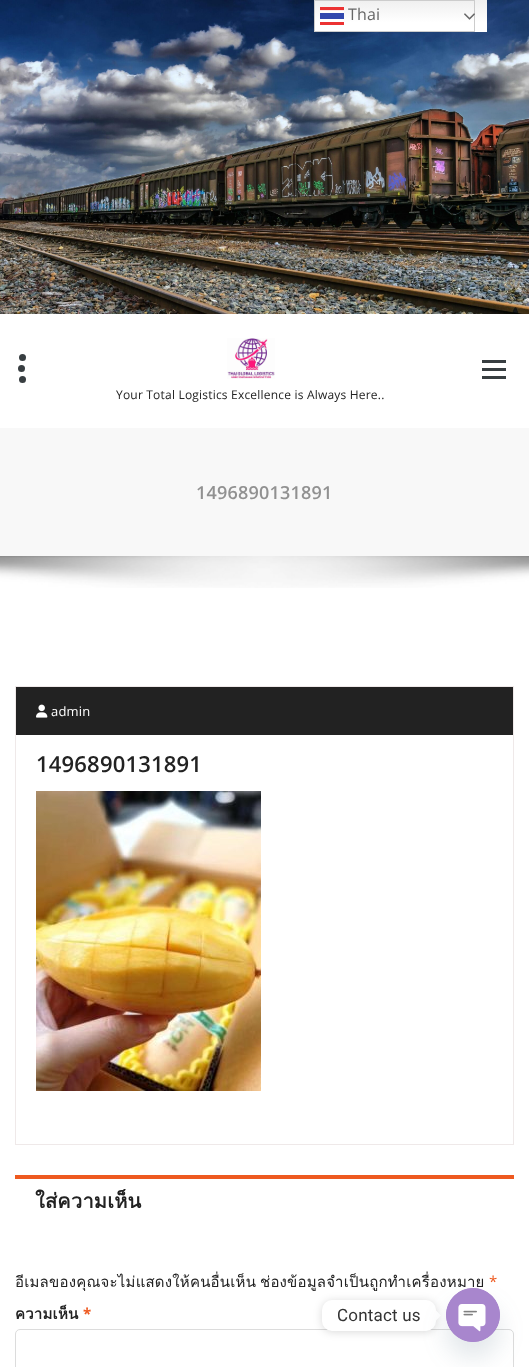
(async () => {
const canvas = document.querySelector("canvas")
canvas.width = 529
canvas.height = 1367
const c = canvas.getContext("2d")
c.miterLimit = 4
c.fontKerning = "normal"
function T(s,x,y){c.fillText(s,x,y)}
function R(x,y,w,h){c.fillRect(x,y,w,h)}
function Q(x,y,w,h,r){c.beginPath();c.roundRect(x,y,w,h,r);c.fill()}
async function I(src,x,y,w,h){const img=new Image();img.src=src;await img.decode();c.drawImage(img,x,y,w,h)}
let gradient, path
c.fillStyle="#fff"
R(0,0,529,1367)
await I("3.png",0,0,529,314)
gradient = c.createLinearGradient(401,0,401,32)
gradient.addColorStop(0,"#efefef")
gradient.addColorStop(.7,"#fff")
c.fillStyle = gradient
R(315,0,172,32)
c.strokeStyle="#ccc"
c.strokeRect(314.5,.5,160,31)
await I("1.png",320,7,24,18)
c.letterSpacing="0.2px"
c.font="16px Open Sans"
c.fillStyle="#666"
T("Thai",348,20)
await I("2.png",464,13,11,7)
c.fillStyle="#383e41"
c.beginPath()
c.arc(21.5,368.5,3.5,0,7)
c.fill()
c.beginPath()
c.arc(22.5,357.5,3.5,0,7)
c.fill()
c.beginPath()
c.arc(22.5,379.5,3.5,0,7)
c.fill()
R(482,360,24,3)
R(482,368,24,3)
R(482,376,24,3)
await I("4.png",227,338,48,41)
c.font="12px Open Sans"
c.fillStyle="#222"
T("Your Total Logistics Excellence is Always Here..",116,399)
c.fillStyle="#f8f8f8"
R(0,428,529,128)
c.font="600 18px Open Sans"
c.fillStyle="#919191"
T("1496890131891",196,499)
await I("5.png",0,556,529,32)
c.strokeStyle="#efe9e9"
c.strokeRect(15.5,686.5,498,458)
c.fillStyle="#222"
R(16,687,497,48)
await I("6.png",36,704,12,14)
c.font="13px Open Sans"
c.fillStyle="#fff"
T("admin",51,716)
c.font="600 22px Open Sans"
c.fillStyle="#222"
T("1496890131891",36,772)
await I("7.png",36,791,225,300)
c.fillStyle="#ee591f"
R(15,1175,499,4)
c.font="bold 20px Loma"
c.fillStyle="#222"
T("ใส่ความเห็น",35,1208)
c.font="15px Loma"
T("อีเมลของคุณจะไม่แสดงให้คนอื่นเห็น",15,1287)
T("ช่องข้อมูลจำเป็นถูกทำเครื่องหมาย",260,1287)
c.font="15px Open Sans"
c.fillStyle="#ee591f"
T("*",489,1287)
c.font="bold 15px Loma"
c.fillStyle="#222"
T("ความเห็น",15,1319)
c.font="bold 15px Open Sans"
c.fillStyle="#ee591f"
T("*",83,1319)
c.beginPath()
c.roundRect(15.5,1329.5,498,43,4.5)
c.strokeStyle="#dcdcdc"
c.stroke()
c.fillStyle="#00000026"
c.filter="blur(4px)"
c.beginPath()
c.roundRect(322,1301,114,31,10)
c.fill()
c.filter="none"
c.fillStyle="#fff"
Q(322,1300,114,31,10)
c.font="17px Roboto"
c.fillStyle="#333"
T("Contact us",337,1321)
c.fillStyle="#fff"
path = new Path2D("M436 1320.5v-10l5 5z")
c.fill(path)
c.fillStyle="#49687e29"
c.filter="blur(12px)"
c.beginPath()
c.roundRect(446,1304,54,54,27)
c.fill()
c.filter="none"
c.fillStyle="#a886cd"
c.beginPath()
c.arc(473,1315,27,0,7)
c.fill()
await I("8.png",446,1288,54,54)
})()
